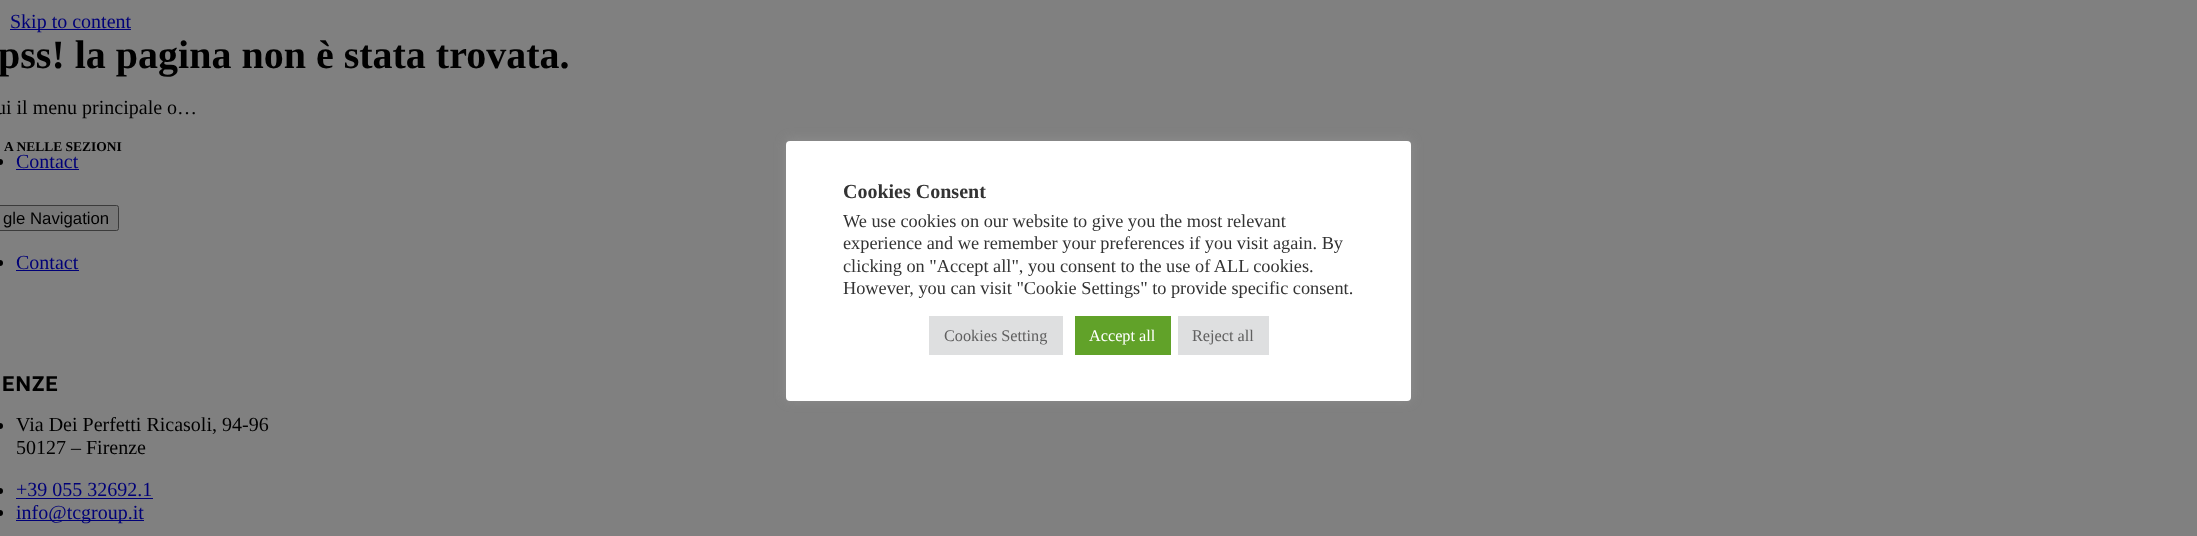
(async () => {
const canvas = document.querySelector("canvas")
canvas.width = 2197
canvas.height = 536
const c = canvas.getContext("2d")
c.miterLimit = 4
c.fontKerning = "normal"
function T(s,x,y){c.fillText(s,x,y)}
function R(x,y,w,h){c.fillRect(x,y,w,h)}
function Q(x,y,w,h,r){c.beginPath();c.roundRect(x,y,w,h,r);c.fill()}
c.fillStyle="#808080"
R(0,0,2197,536)
c.fillStyle="#007"
R(10,29,121,1)
c.font="20px Liberation Serif"
T("Skip to content",10,28)
c.font="bold 40px Liberation Serif"
c.fillStyle="#000"
T("pss! la pagina non è stata trovata.",-2,68)
c.font="20px Liberation Serif"
T("ui il menu principale o…",-4,114)
c.font="bold 13.5px Liberation Serif"
T("A NELLE SEZIONI",4,151)
c.fillStyle="#787878"
c.beginPath()
c.roundRect(-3.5,205.5,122,25,2)
c.fill()
c.strokeStyle="#3b3b3b"
c.stroke()
c.font="16.75px Liberation Sans"
c.fillStyle="#000"
T("gle Navigation",3,224)
c.beginPath()
c.arc(0,263,3,0,7)
c.fill()
c.font="20px Liberation Serif"
c.fillStyle="#007"
T("Contact",16,269)
R(16,270,63,1)
c.fillStyle="#000"
c.beginPath()
c.arc(0,162,3,0,7)
c.fill()
c.fillStyle="#007"
T("Contact",16,168)
R(16,169,63,1)
c.letterSpacing="1px"
c.font="bold 20px Encode Sans SC"
c.fillStyle="#000"
T("ENZE",2,391)
c.beginPath()
c.arc(0,426,3,0,7)
c.fill()
c.letterSpacing="0px"
c.font="20px Liberation Serif"
T("Via Dei Perfetti Ricasoli, 94-96",16,431)
T("50127 – Firenze",16,454)
c.beginPath()
c.arc(0,491,3,0,7)
c.fill()
c.fillStyle="#007"
T("+39 055 32692.1",16,496)
R(16,498,137,1)
c.fillStyle="#000"
c.beginPath()
c.arc(0,513,3,0,7)
c.fill()
c.fillStyle="#007"
R(16,520,128,1)
T("info@tcgroup.it",16,519)
c.fillStyle="#acabab4d"
c.filter="blur(6px)"
c.beginPath()
c.roundRect(786,140,625,260,4)
c.fill()
c.filter="none"
c.fillStyle="#fff"
Q(786,141,625,260,4)
c.font="bold 20px Liberation Serif"
c.fillStyle="#333"
T("Cookies Consent",843,198)
c.font="18.3px Liberation Serif"
T("We use cookies on our website to give you the most relevant",843,227)
T("experience and we remember your preferences if you visit again. By",843,249)
T("clicking on \"Accept all\", you consent to the use of ALL cookies.",843,272)
T("However, you can visit \"Cookie Settings\" to provide specific consent.",843,294)
c.fillStyle="#dedfe0"
R(929,316,134,39)
c.font="16.25px Liberation Serif"
c.fillStyle="#606060"
T("Cookies Setting",944,341)
c.fillStyle="#61a229"
R(1075,316,96,39)
c.fillStyle="#fff"
T("Accept all",1089,341)
c.fillStyle="#dedfe0"
R(1178,316,91,39)
c.fillStyle="#606060"
T("Reject all",1192,341)
})()
